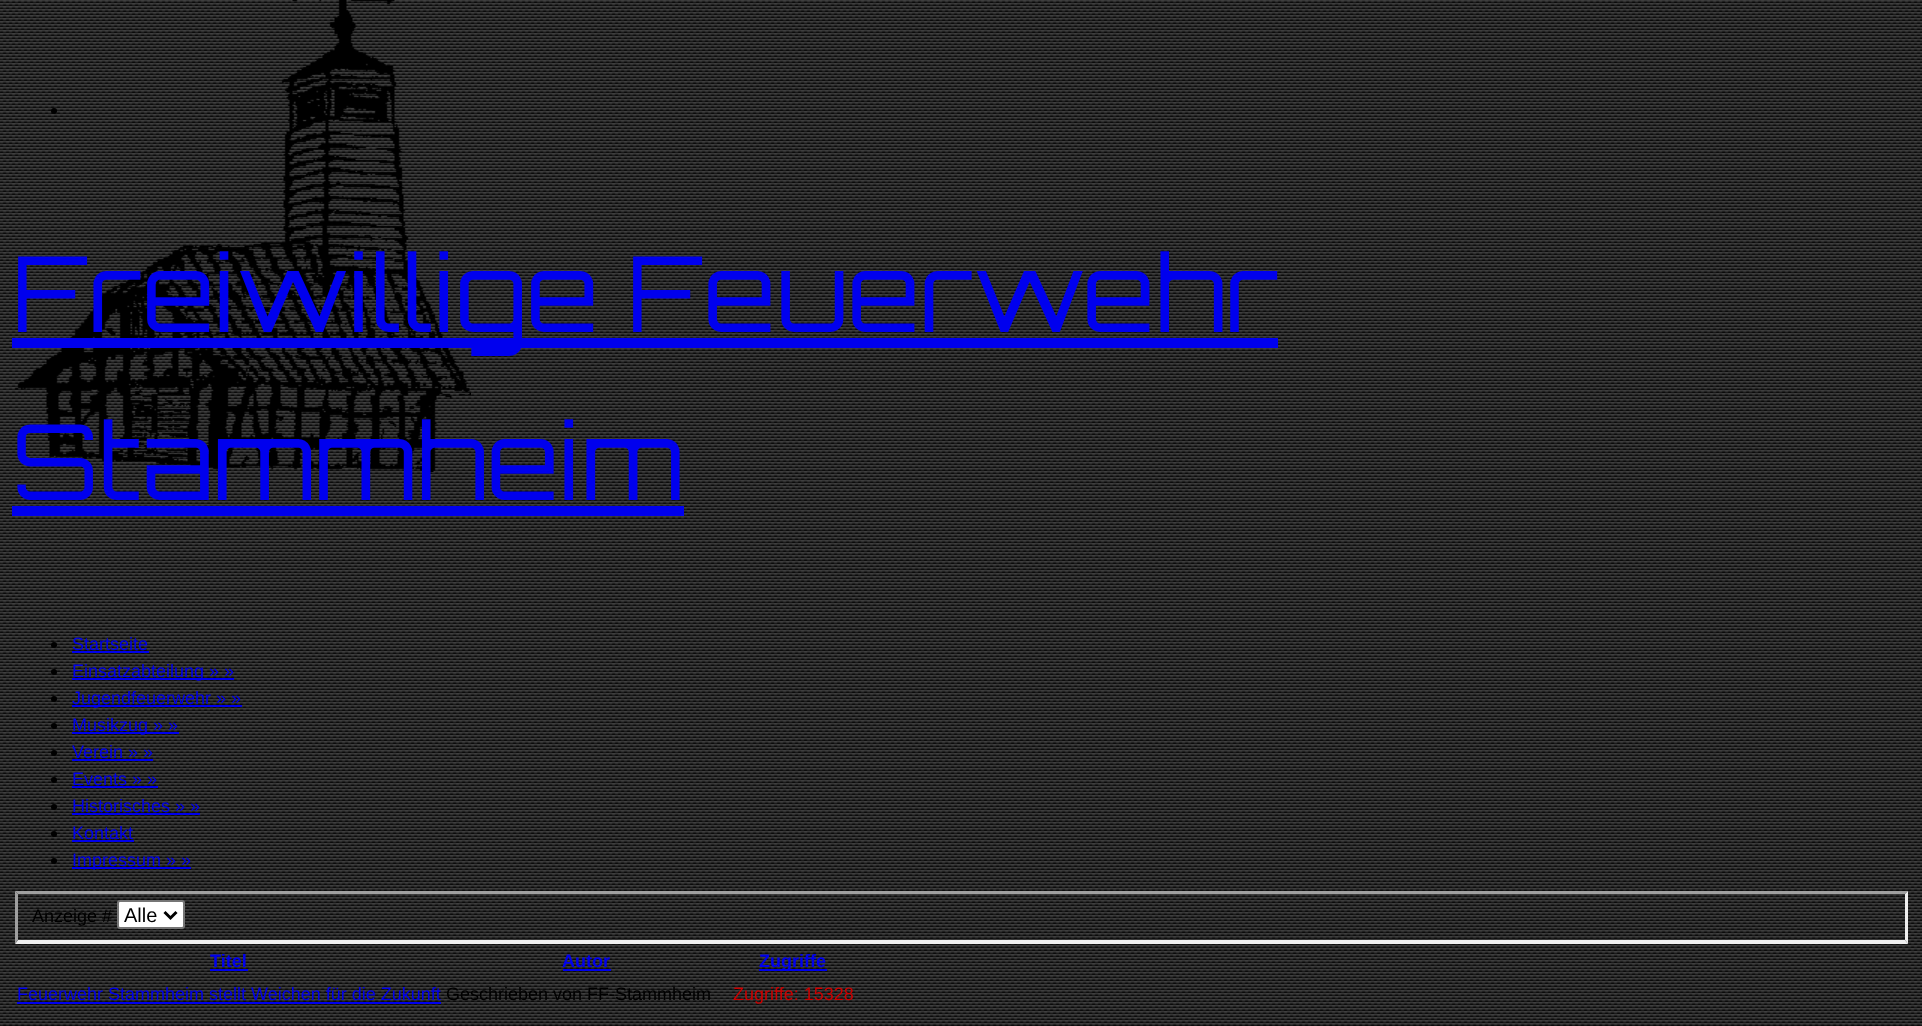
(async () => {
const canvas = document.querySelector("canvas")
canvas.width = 1922
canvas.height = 1026
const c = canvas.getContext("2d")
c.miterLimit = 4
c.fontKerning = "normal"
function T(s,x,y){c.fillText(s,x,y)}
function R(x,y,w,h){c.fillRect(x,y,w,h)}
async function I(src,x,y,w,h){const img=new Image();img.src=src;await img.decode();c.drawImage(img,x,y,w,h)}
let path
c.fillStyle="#fff"
R(0,0,1922,1026)
await I("1.png",0,0,1922,1026)
await I("2.png",14,0,457,472)
c.fillStyle="#000"
c.beginPath()
c.arc(54,111,3,0,7)
c.fill()
c.fillStyle="#00e"
R(12,338,1266,10)
c.font="105px Orbitron"
T("Freiwillige Feuerwehr",12,332)
T("Stammheim",12,500)
R(12,506,672,10)
c.fillStyle="#000"
c.beginPath()
c.arc(54,645,3,0,7)
c.fill()
c.font="18px Liberation Sans"
c.fillStyle="#00e"
T("Startseite",72,650)
R(72,651,77,2)
c.fillStyle="#000"
c.beginPath()
c.arc(54,672,3,0,7)
c.fill()
c.fillStyle="#00e"
R(72,678,162,2)
T("Einsatzabteilung » »",72,677)
c.fillStyle="#000"
c.beginPath()
c.arc(54,699,3,0,7)
c.fill()
c.fillStyle="#00e"
R(72,705,170,2)
T("Jugendfeuerwehr » »",72,704)
c.fillStyle="#000"
c.beginPath()
c.arc(54,726,3,0,7)
c.fill()
c.fillStyle="#00e"
R(72,732,107,2)
T("Musikzug » »",72,731)
c.fillStyle="#000"
c.beginPath()
c.arc(54,753,3,0,7)
c.fill()
c.fillStyle="#00e"
T("Verein » »",72,758)
R(72,759,81,2)
c.fillStyle="#000"
c.beginPath()
c.arc(54,780,3,0,7)
c.fill()
c.fillStyle="#00e"
T("Events » »",72,785)
R(72,786,86,2)
c.fillStyle="#000"
c.beginPath()
c.arc(54,807,3,0,7)
c.fill()
c.fillStyle="#00e"
T("Historisches » »",72,812)
R(72,813,128,2)
c.fillStyle="#000"
c.beginPath()
c.arc(54,834,3,0,7)
c.fill()
c.fillStyle="#00e"
T("Kontakt",72,839)
R(72,840,62,2)
c.fillStyle="#000"
c.beginPath()
c.arc(54,861,3,0,7)
c.fill()
c.fillStyle="#00e"
R(72,867,119,2)
T("Impressum » »",72,866)
c.fillStyle="#9f9f9f"
path = new Path2D("M15 891h1893l-3 3h-1887z")
c.fill(path)
c.fillStyle="#efefef"
path = new Path2D("M1908 891v53l-3-4v-46z")
c.fill(path)
path = new Path2D("M1908 944h-1893l3-4h1887z")
c.fill(path)
c.fillStyle="#9f9f9f"
path = new Path2D("M15 944v-53l3 3v46z")
c.fill(path)
c.fillStyle="#000"
T("Anzeige #",32,922)
c.fillStyle="#fff"
c.beginPath()
c.roundRect(118,901,66,27,2)
c.fill()
c.strokeStyle="#767676"
c.lineWidth=2
c.stroke()
path = new Path2D("M164.5 912l6 6l6-6")
c.strokeStyle="#000"
c.lineWidth=3
c.stroke(path)
c.font="20px Liberation Sans"
c.fillStyle="#000"
T("Alle",124,922)
c.font="bold 18px Liberation Sans"
c.fillStyle="#00e"
T("Titel",210,967)
R(210,969,38,2)
T("Autor",562,967)
R(563,969,48,2)
R(759,969,68,2)
T("Zugriffe",759,967)
c.font="18px Liberation Sans"
T("Feuerwehr Stammheim stellt Weichen für die Zukunft",17,1000)
R(17,1002,424,2)
c.fillStyle="#000"
T("Geschrieben von FF-Stammheim",446,1000)
c.fillStyle="#c00"
T("Zugriffe: 15328",733,1000)
})()
